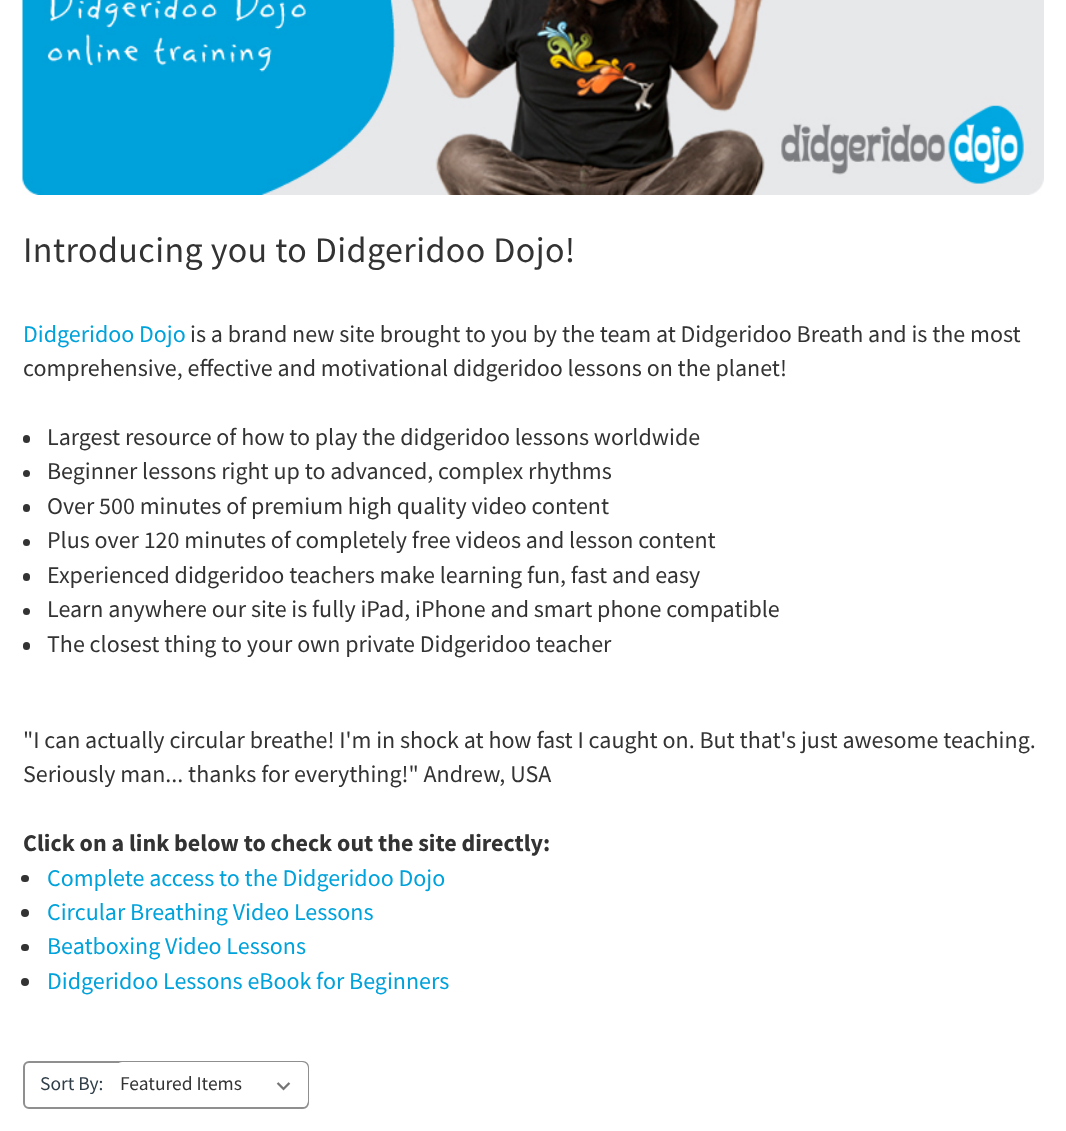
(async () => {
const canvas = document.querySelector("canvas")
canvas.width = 1066
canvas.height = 1131
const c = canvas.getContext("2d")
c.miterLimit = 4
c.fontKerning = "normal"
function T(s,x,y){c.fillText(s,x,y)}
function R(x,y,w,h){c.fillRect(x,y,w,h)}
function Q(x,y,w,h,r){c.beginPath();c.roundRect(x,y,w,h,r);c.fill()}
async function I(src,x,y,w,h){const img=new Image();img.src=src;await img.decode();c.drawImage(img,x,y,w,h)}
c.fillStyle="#fff"
R(0,0,1066,1131)
await I("1.png",22,0,1022,195)
c.letterSpacing="0.4px"
c.font="36px Source Sans Pro"
c.fillStyle="#333"
T("Introducing you to Didgeridoo Dojo!",23,262)
c.letterSpacing="0px"
c.font="24px Source Sans Pro"
c.fillStyle="#00a2db"
T("Didgeridoo Dojo",23,342)
c.fillStyle="#333"
T("is a brand new site brought to you by the team at Didgeridoo Breath and is the most",190,342)
T("comprehensive, effective and motivational didgeridoo lessons on the planet!",23,376)
Q(23,435,7,8,3.5)
T("Largest resource of how to play the didgeridoo lessons worldwide",47,445)
c.beginPath()
c.arc(26.5,473.5,3.5,0,7)
c.fill()
T("Beginner lessons right up to advanced, complex rhythms",47,479)
Q(23,504,7,8,3.5)
T("Over 500 minutes of premium high quality video content",47,514)
c.beginPath()
c.arc(26.5,542.5,3.5,0,7)
c.fill()
T("Plus over 120 minutes of completely free videos and lesson content",47,548)
Q(23,573,7,8,3.5)
T("Experienced didgeridoo teachers make learning fun, fast and easy",47,583)
c.beginPath()
c.arc(26.5,611.5,3.5,0,7)
c.fill()
T("Learn anywhere our site is fully iPad, iPhone and smart phone compatible",47,617)
Q(23,642,7,8,3.5)
T("The closest thing to your own private Didgeridoo teacher",47,652)
T("\"I can actually circular breathe! I'm in shock at how fast I caught on. But that's just awesome teaching.",23,748)
T("Seriously man... thanks for everything!\" Andrew, USA",23,782)
c.font="bold 24px Source Sans Pro"
T("Click on a link below to check out the site directly:",23,851)
Q(21,875,8,7,3.5)
c.font="24px Source Sans Pro"
c.fillStyle="#00a2db"
T("Complete access to the Didgeridoo Dojo",47,886)
c.fillStyle="#333"
c.beginPath()
c.arc(25,913,4,0,7)
c.fill()
c.fillStyle="#00a2db"
T("Circular Breathing Video Lessons",47,920)
c.fillStyle="#333"
Q(21,944,8,7,3.5)
c.fillStyle="#00a2db"
T("Beatboxing Video Lessons",47,954)
c.fillStyle="#333"
c.beginPath()
c.arc(25,982,4,0,7)
c.fill()
c.fillStyle="#00a2db"
T("Didgeridoo Lessons eBook for Beginners",47,989)
c.beginPath()
c.roundRect(24,1062,284,46,5)
c.strokeStyle="#8f8f8f"
c.lineWidth=2
c.stroke()
c.font="19.5px Source Sans Pro"
c.fillStyle="#303e48"
T("Sort By:",40,1090)
c.fillStyle="#fff"
Q(116,1062,192,45,6)
await I("2.png",276,1082,15,9)
c.fillStyle="#333"
T("Featured Items",120,1090)
})()
